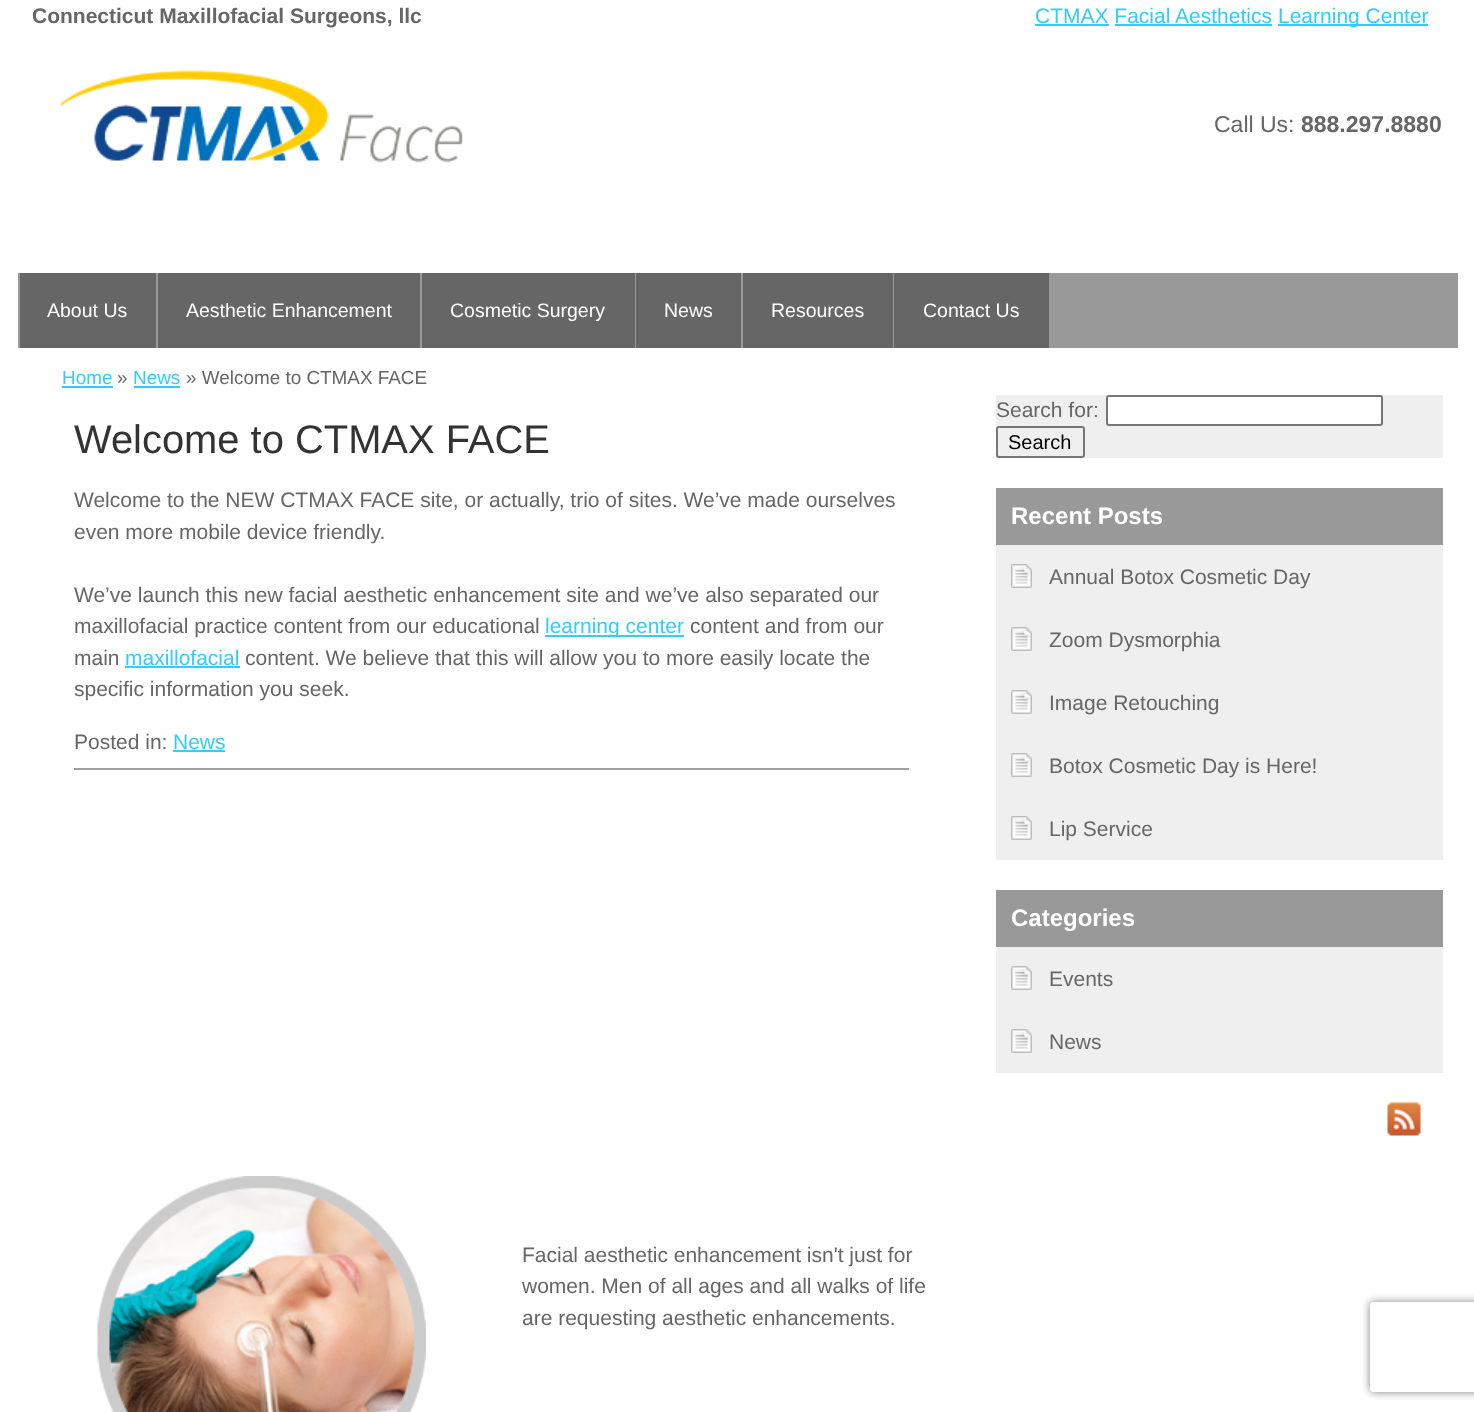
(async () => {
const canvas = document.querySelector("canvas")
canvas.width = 1474
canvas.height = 1412
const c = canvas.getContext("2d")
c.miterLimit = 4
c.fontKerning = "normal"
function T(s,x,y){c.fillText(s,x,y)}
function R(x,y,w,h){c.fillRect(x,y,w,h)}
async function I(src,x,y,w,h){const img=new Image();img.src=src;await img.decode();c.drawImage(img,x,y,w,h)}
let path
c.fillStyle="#fff"
R(0,0,1474,1412)
c.font="bold 21px Liberation Sans"
c.fillStyle="#666"
T("Connecticut Maxillofacial Surgeons, llc",32,23)
c.font="21px Liberation Sans"
c.fillStyle="#3cf"
T("CTMAX Facial Aesthetics",1035,23)
R(1035,24,74,2)
R(1278,24,150,2)
T("Learning Center",1278,23)
R(1115,24,157,2)
await I("1.png",59,70,404,93)
c.font="23px Liberation Sans"
c.fillStyle="#666"
T("Call Us:",1214,132)
c.font="bold 23px Liberation Sans"
T("888.297.8880",1301,132)
c.fillStyle="#999"
R(18,273,1440,75)
c.fillStyle="#666"
R(20,273,136,75)
c.font="19.5px Liberation Sans"
c.fillStyle="#fff"
T("About Us",47,317)
c.fillStyle="#666"
R(158,273,262,75)
c.fillStyle="#fff"
T("Aesthetic Enhancement",186,317)
c.fillStyle="#666"
R(422,273,213,75)
c.fillStyle="#fff"
T("Cosmetic Surgery",450,317)
c.fillStyle="#666"
R(636,273,105,75)
c.fillStyle="#fff"
T("News",664,317)
c.fillStyle="#666"
R(743,273,150,75)
c.fillStyle="#fff"
T("Resources",771,317)
c.fillStyle="#666"
R(894,273,155,75)
c.fillStyle="#fff"
T("Contact Us",923,317)
c.font="18.9px Liberation Sans"
c.fillStyle="#3cf"
T("Home",62,384)
R(62,386,51,2)
c.fillStyle="#666"
T("»",117,384)
c.fillStyle="#3cf"
T("News",133,384)
R(134,386,46,2)
c.fillStyle="#666"
T("» Welcome to CTMAX FACE",186,384)
c.font="39.9px Liberation Sans"
c.fillStyle="#333"
T("Welcome to CTMAX FACE",74,453)
c.font="21px Liberation Sans"
c.fillStyle="#666"
T("Welcome to the NEW CTMAX FACE site, or actually, trio of sites. We’ve made ourselves",74,507)
T("even more mobile device friendly.",74,539)
T("We’ve launch this new facial aesthetic enhancement site and we’ve also separated our",74,602)
T("maxillofacial practice content from our educational",74,633)
c.fillStyle="#3cf"
R(545,635,139,2)
T("learning center",545,633)
c.fillStyle="#666"
T("content and from our",690,633)
T("main",74,665)
c.fillStyle="#3cf"
T("maxillofacial",125,665)
R(125,666,115,2)
c.fillStyle="#666"
T("content. We believe that this will allow you to more easily locate the",245,665)
T("specific information you seek.",74,696)
T("Posted in:",74,749)
c.fillStyle="#3cf"
T("News",173,749)
R(173,750,52,2)
c.fillStyle="#9f9f9f"
R(74,768,837,2)
c.fillStyle="#eee"
R(909,768,2,2)
c.fillStyle="#efefef"
R(996,395,447,63)
c.fillStyle="#666"
T("Search for:",996,417)
c.fillStyle="#fff"
c.beginPath()
c.roundRect(1107,396,275,29,2)
c.fill()
c.strokeStyle="#767676"
c.lineWidth=2
c.stroke()
c.beginPath()
c.roundRect(997,427,87,30,2)
c.stroke()
c.font="20px Liberation Sans"
c.fillStyle="#000"
T("Search",1008,449)
c.fillStyle="#efefef"
R(996,545,447,315)
c.fillStyle="#999"
R(996,488,447,57)
c.font="bold 24px Liberation Sans"
c.fillStyle="#fff"
T("Recent Posts",1011,524)
await I("2.png",1011,564,21,24)
c.font="21px Liberation Sans"
c.fillStyle="#666"
T("Annual Botox Cosmetic Day",1049,584)
await I("2.png",1011,627,21,24)
T("Zoom Dysmorphia",1049,647)
await I("2.png",1011,690,21,24)
T("Image Retouching",1049,710)
await I("2.png",1011,753,21,24)
T("Botox Cosmetic Day is Here!",1049,773)
await I("2.png",1011,816,21,24)
T("Lip Service",1049,836)
c.fillStyle="#efefef"
R(996,947,447,126)
c.fillStyle="#999"
R(996,890,447,57)
c.font="bold 24px Liberation Sans"
c.fillStyle="#fff"
T("Categories",1011,926)
await I("2.png",1011,966,21,24)
c.font="21px Liberation Sans"
c.fillStyle="#666"
T("Events",1049,986)
await I("2.png",1011,1029,21,24)
T("News",1049,1049)
await I("3.png",1387,1102,34,34)
await I("4.png",97,1176,329,236)
T("Facial aesthetic enhancement isn't just for",522,1262)
T("women. Men of all ages and all walks of life",522,1293)
T("are requesting aesthetic enhancements.",522,1325)
c.save()
path = new Path2D("M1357 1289h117v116h-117zm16 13h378c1.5 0 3 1.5 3 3v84c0 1.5-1.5 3-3 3h-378c-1.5 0-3-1.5-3-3v-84c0-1.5 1.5-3 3-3z")
c.clip(path,"evenodd")
c.fillStyle="#808080"
c.filter="blur(4px)"
c.beginPath()
c.roundRect(1370,1302,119,90,3)
c.fill()
c.filter="none"
c.restore()
})()
